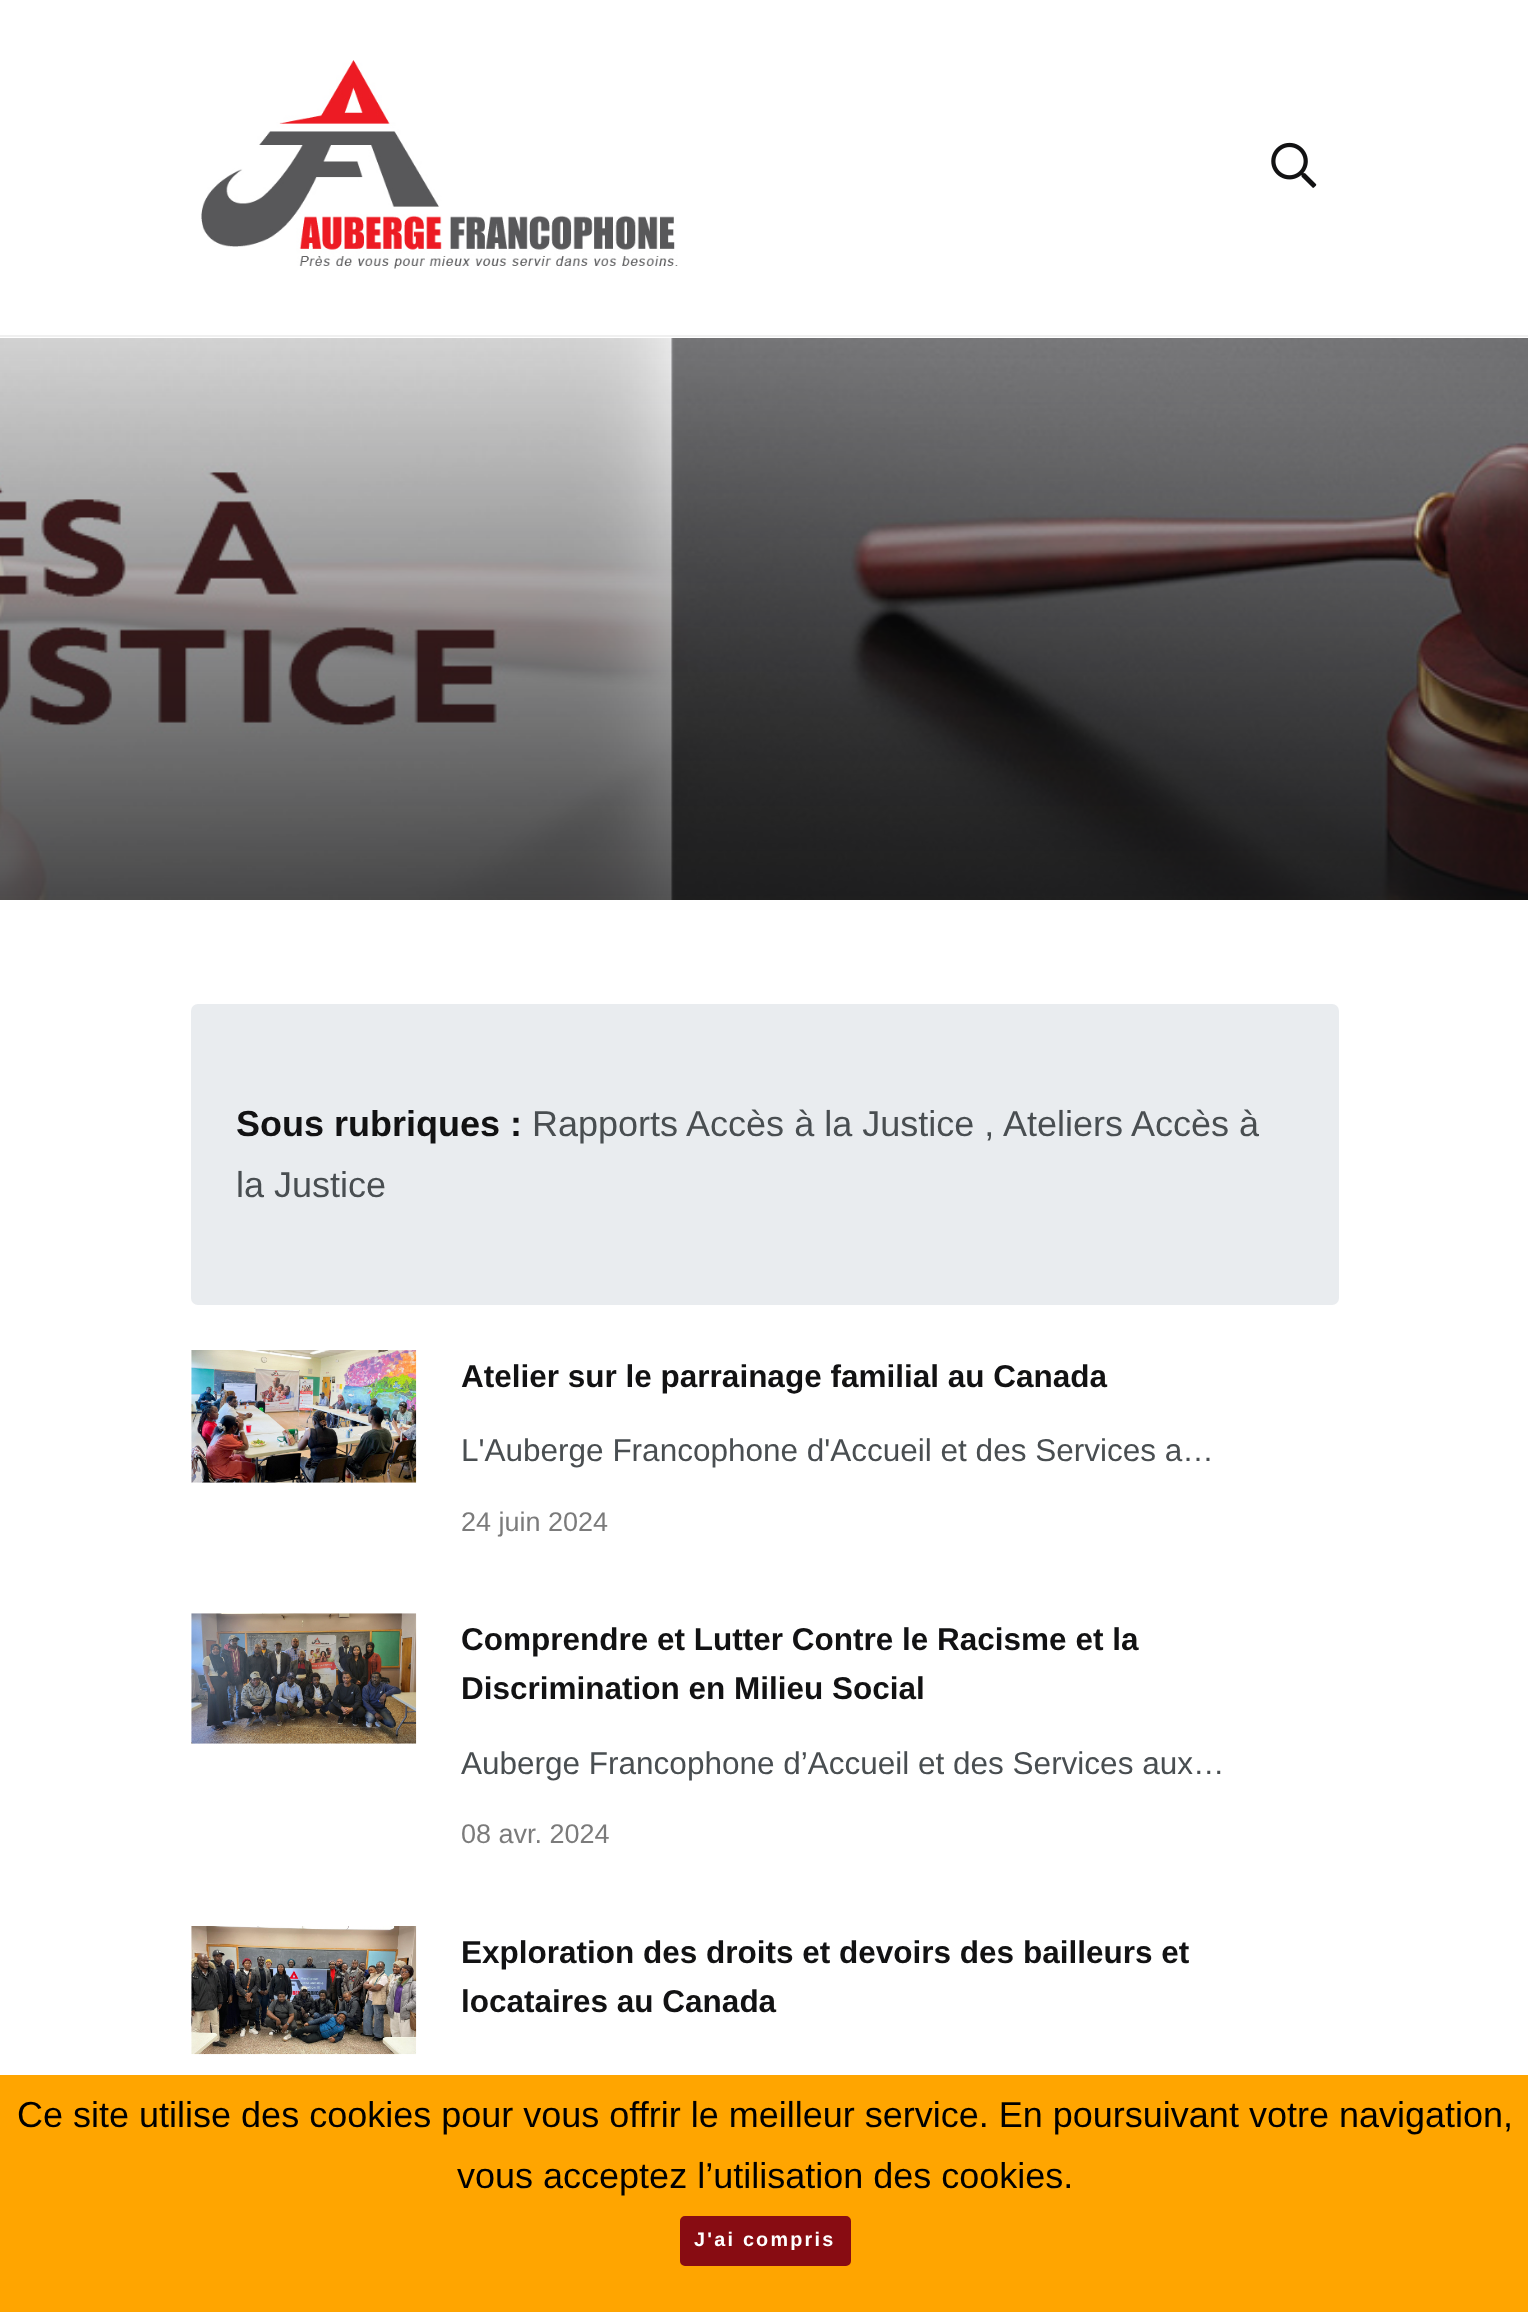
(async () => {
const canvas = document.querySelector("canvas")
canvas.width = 1528
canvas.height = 2312
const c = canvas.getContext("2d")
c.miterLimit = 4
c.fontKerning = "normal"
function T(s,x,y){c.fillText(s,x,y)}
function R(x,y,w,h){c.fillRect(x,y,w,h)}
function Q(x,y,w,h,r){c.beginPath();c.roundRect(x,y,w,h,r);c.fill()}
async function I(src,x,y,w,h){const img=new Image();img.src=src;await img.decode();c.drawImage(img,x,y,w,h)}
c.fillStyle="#fff"
R(0,0,1528,2312)
c.fillStyle="#f0f0f0"
R(0,335,1528,2)
await I("1.png",201,60,477,209)
await I("2.png",1271,142,46,46)
await I("3.png",0,338,1528,562)
c.fillStyle="#e9ecef"
Q(191,1004,1148,301,7)
c.font="bold 36px Liberation Sans"
c.fillStyle="#121213"
T("Sous rubriques :",236,1136)
c.font="36px Liberation Sans"
c.fillStyle="#494e51"
T("Rapports Accès à la Justice ,",532,1136)
T("Ateliers Accès à",1003,1136)
T("la Justice",236,1197)
await I("4.png",191,1350,226,133)
c.font="bold 31.5px Liberation Sans"
c.fillStyle="#121213"
T("Atelier sur le parrainage familial au Canada",461,1387)
c.font="31.5px Liberation Sans"
c.fillStyle="#494e51"
T("L'Auberge Francophone d'Accueil et des Services a…",461,1461)
c.font="27px Liberation Sans"
c.fillStyle="#7b7b7b"
T("24 juin 2024",461,1531)
await I("5.png",191,1613,226,131)
c.font="bold 31.5px Liberation Sans"
c.fillStyle="#121213"
T("Comprendre et Lutter Contre le Racisme et la",461,1650)
T("Discrimination en Milieu Social",461,1699)
c.font="31.5px Liberation Sans"
c.fillStyle="#494e51"
T("Auberge Francophone d’Accueil et des Services aux…",461,1774)
c.font="27px Liberation Sans"
c.fillStyle="#7b7b7b"
T("08 avr. 2024",461,1843)
await I("6.png",191,1926,226,129)
c.font="bold 31.5px Liberation Sans"
c.fillStyle="#121213"
T("Exploration des droits et devoirs des bailleurs et",461,1963)
T("locataires au Canada",461,2012)
c.fillStyle="#ffa500"
R(0,2075,1528,237)
c.font="36px Liberation Sans"
c.fillStyle="#000"
T("Ce site utilise des cookies pour vous offrir le meilleur service. En poursuivant votre navigation,",17,2127)
T("vous acceptez l’utilisation des cookies.",457,2188)
c.fillStyle="#880c12"
c.beginPath()
c.roundRect(682.5,2218.5,166,45,2.5)
c.fill()
c.strokeStyle="#880c12"
c.lineWidth=5
c.stroke()
c.letterSpacing="2.25px"
c.font="bold 19.75px Liberation Sans"
c.fillStyle="#fff"
T("J'ai compris",694,2246)
})()
